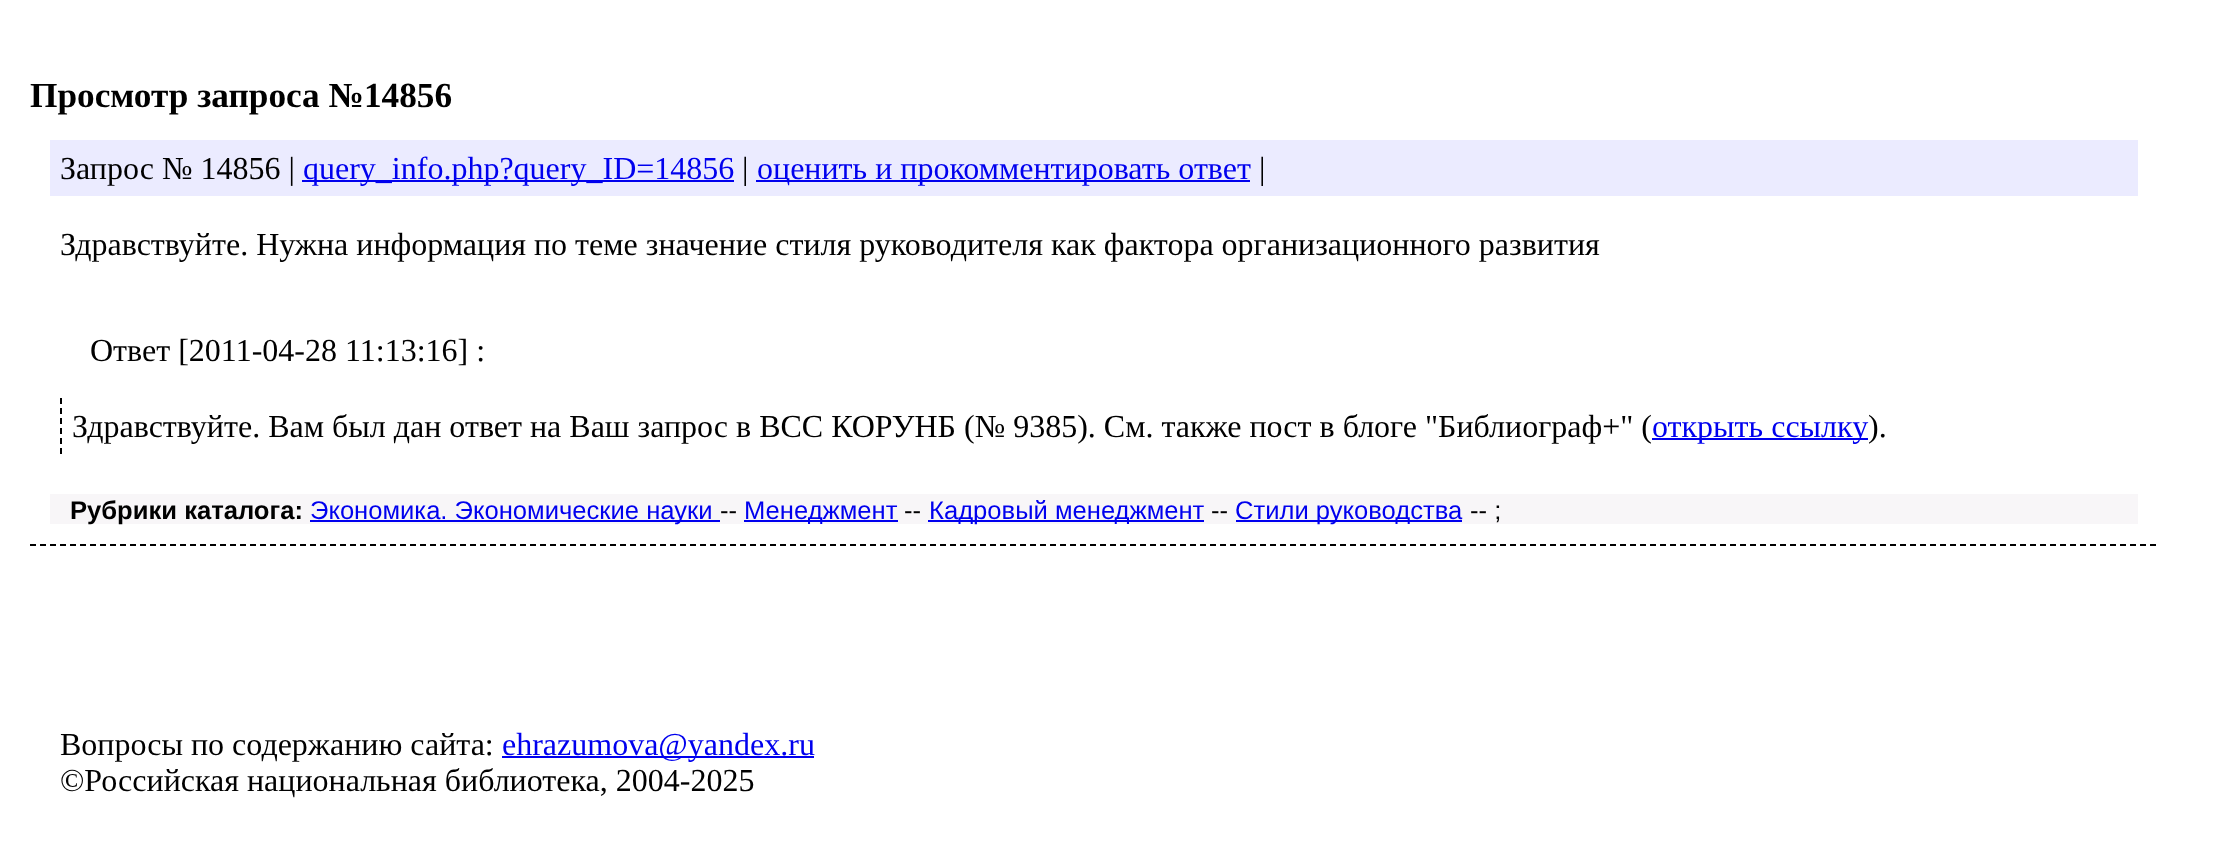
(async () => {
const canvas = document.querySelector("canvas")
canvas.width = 2223
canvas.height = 851
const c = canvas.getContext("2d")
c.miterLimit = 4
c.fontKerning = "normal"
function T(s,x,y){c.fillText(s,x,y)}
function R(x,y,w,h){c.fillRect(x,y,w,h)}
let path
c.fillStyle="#fff"
R(0,0,2223,851)
c.font="bold 35.25px Liberation Serif"
c.fillStyle="#000"
T("Просмотр запроса №14856",30,107)
path = new Path2D("M30 545h2128")
c.strokeStyle="#000"
c.lineWidth=2
c.setLineDash([6,4])
c.stroke(path)
c.fillStyle="#ebebff"
R(50,140,2088,56)
c.font="32px Liberation Serif"
c.fillStyle="#000"
T("Запрос № 14856 |",60,179)
c.fillStyle="#00e"
R(302,180,432,2)
T("query_info.php?query_ID=14856",303,179)
c.fillStyle="#000"
T("|",742,179)
c.fillStyle="#00e"
R(756,180,494,2)
T("оценить и прокомментировать ответ",757,179)
c.fillStyle="#000"
T("|",1259,179)
T("Здравствуйте. Нужна информация по теме значение стиля руководителя как фактора организационного развития",60,255)
T("Ответ [2011-04-28 11:13:16] :",90,361)
path = new Path2D("M61 398v56")
c.stroke(path)
T("Здравствуйте. Вам был дан ответ на Ваш запрос в ВСС КОРУНБ (№ 9385). См. также пост в блоге \"Библиограф+\" (",72,437)
c.fillStyle="#00e"
R(1652,438,216,2)
T("открыть ссылку",1652,437)
c.fillStyle="#000"
T(").",1868,437)
c.fillStyle="#f8f6f8"
R(50,494,2088,30)
c.font="bold 25.6px Liberation Sans"
c.fillStyle="#000"
T("Рубрики каталога:",70,519)
c.fillStyle="#00e"
R(310,520,410,2)
c.font="25.6px Liberation Sans"
T("Экономика. Экономические науки",310,519)
c.fillStyle="#000"
T("--",720,519)
c.fillStyle="#00e"
R(744,520,154,2)
T("Менеджмент",744,519)
c.fillStyle="#000"
T("--",904,519)
c.fillStyle="#00e"
R(928,520,276,2)
T("Кадровый менеджмент",929,519)
c.fillStyle="#000"
T("--",1211,519)
c.fillStyle="#00e"
R(1236,520,226,2)
T("Стили руководства",1235,519)
c.fillStyle="#000"
T("-- ;",1470,519)
c.font="32px Liberation Serif"
T("Вопросы по содержанию сайта:",60,755)
c.fillStyle="#00e"
R(502,756,312,2)
T("ehrazumova@yandex.ru",502,755)
c.fillStyle="#000"
T("©Российская национальная библиотека, 2004-2025",60,791)
})()
